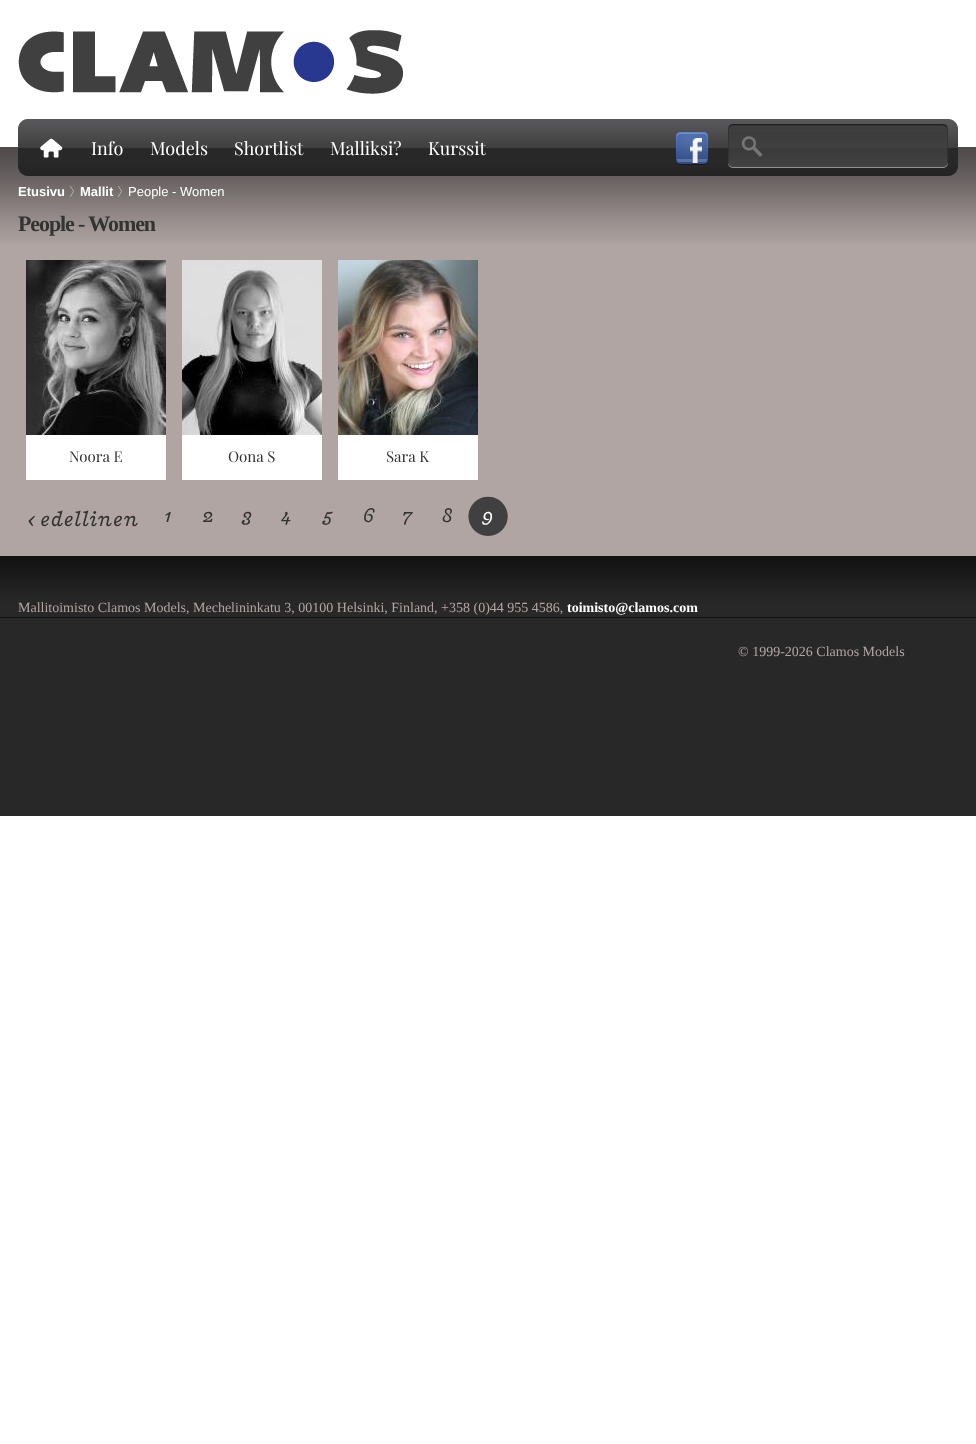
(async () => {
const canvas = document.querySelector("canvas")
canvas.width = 976
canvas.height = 1444
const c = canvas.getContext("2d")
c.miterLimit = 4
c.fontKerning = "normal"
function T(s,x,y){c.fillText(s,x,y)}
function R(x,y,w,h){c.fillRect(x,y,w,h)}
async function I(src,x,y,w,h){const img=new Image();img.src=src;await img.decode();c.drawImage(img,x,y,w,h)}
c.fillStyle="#fff"
R(0,0,976,1444)
c.fillStyle="#b0a5a3"
R(0,243,976,313)
await I("1.png",18,30,385,64)
await I("6.png",0,147,976,96)
await I("2.png",18,119,940,57)
await I("3.png",40,138,23,20)
c.font="18px Playfair Display"
c.fillStyle="#fff"
T("Info",91,155)
T("Models",150,155)
T("Shortlist",234,155)
T("Malliksi?",330,155)
T("Kurssit",428,155)
await I("4.png",676,132,32,33)
await I("5.png",728,124,220,44)
c.font="bold 13px Liberation Sans"
T("Etusivu",18,196)
await I("7.png",70,186,4,11)
T("Mallit",80,196)
await I("7.png",118,186,4,11)
c.font="13px Liberation Sans"
T("People - Women",128,196)
c.letterSpacing="-1.1px"
c.font="bold 22px Liberation Serif"
c.fillStyle="#333"
T("People - Women",18,231)
c.fillStyle="#fff"
R(26,435,140,45)
await I("8.png",26,260,140,175)
c.letterSpacing="0px"
c.font="15px Playfair Display"
c.fillStyle="#333"
T("Noora E",69,462)
c.fillStyle="#fff"
R(182,435,140,45)
await I("9.png",182,260,140,175)
c.fillStyle="#333"
T("Oona S",228,462)
c.fillStyle="#fff"
R(338,435,140,45)
await I("10.png",338,260,140,175)
c.fillStyle="#333"
T("Sara K",386,462)
c.wordSpacing="-1px"
c.font="italic 300 24px Playfair"
T("‹ edellinen",27,526)
c.wordSpacing="0px"
T("1",164,522)
T("2",202,522)
T("3",242,522)
T("4",282,522)
T("5",323,522)
T("6",362,522)
T("7",402,522)
T("8",442,522)
await I("11.png",468,496,40,40)
c.fillStyle="#fff"
T("9",482,522)
c.fillStyle="#282828"
R(0,618,976,198)
await I("12.png",0,556,976,62)
c.font="14px Liberation Serif"
c.fillStyle="#b0a5a3"
T("Mallitoimisto Clamos Models, Mechelininkatu 3, 00100 Helsinki, Finland, +358 (0)44 955 4586,",18,612)
c.font="bold 14px Liberation Serif"
c.fillStyle="#fff"
T("toimisto@clamos.com",567,612)
c.font="14px Liberation Serif"
c.fillStyle="#b0a5a3"
T("© 1999-2026 Clamos Models",738,656)
})()
